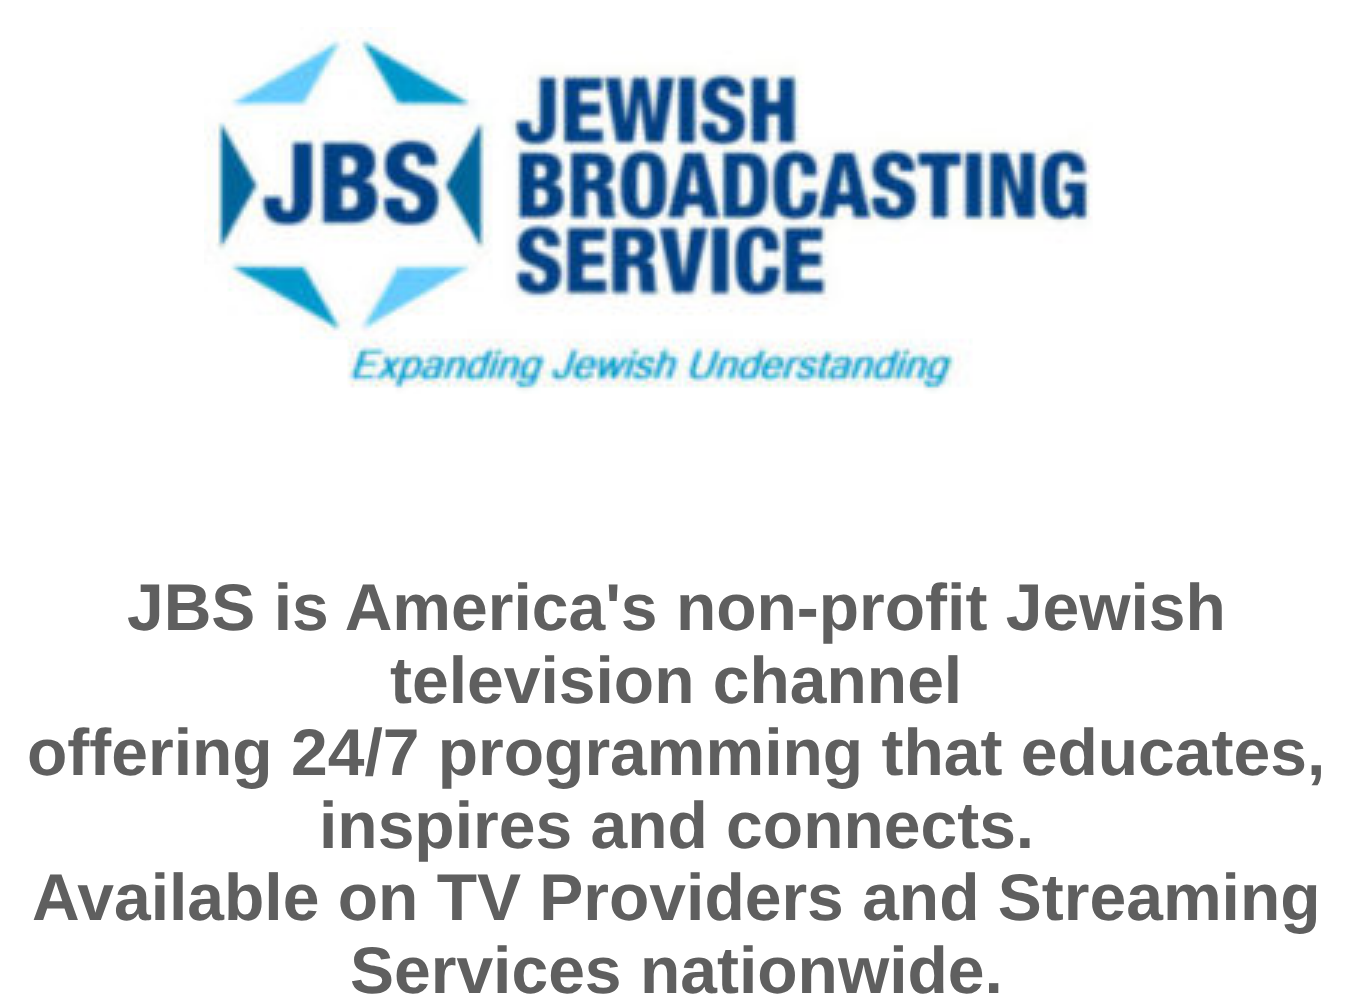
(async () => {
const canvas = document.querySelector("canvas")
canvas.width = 1352
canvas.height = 1007
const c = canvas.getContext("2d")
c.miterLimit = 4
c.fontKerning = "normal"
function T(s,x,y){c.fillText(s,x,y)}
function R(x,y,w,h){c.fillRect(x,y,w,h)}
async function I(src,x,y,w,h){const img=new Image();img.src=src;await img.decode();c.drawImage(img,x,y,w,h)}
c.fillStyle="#fff"
R(0,0,1352,1007)
await I("1.png",204,27,889,367)
c.font="bold 66px Liberation Sans"
c.fillStyle="#5f5f5f"
T("JBS is America's non-profit Jewish",127,630)
T("television channel",390,703)
T("offering 24/7 programming that educates,",27,775)
T("inspires and connects.",319,848)
T("Available on TV Providers and Streaming",32,920)
T("Services nationwide.",350,993)
})()
